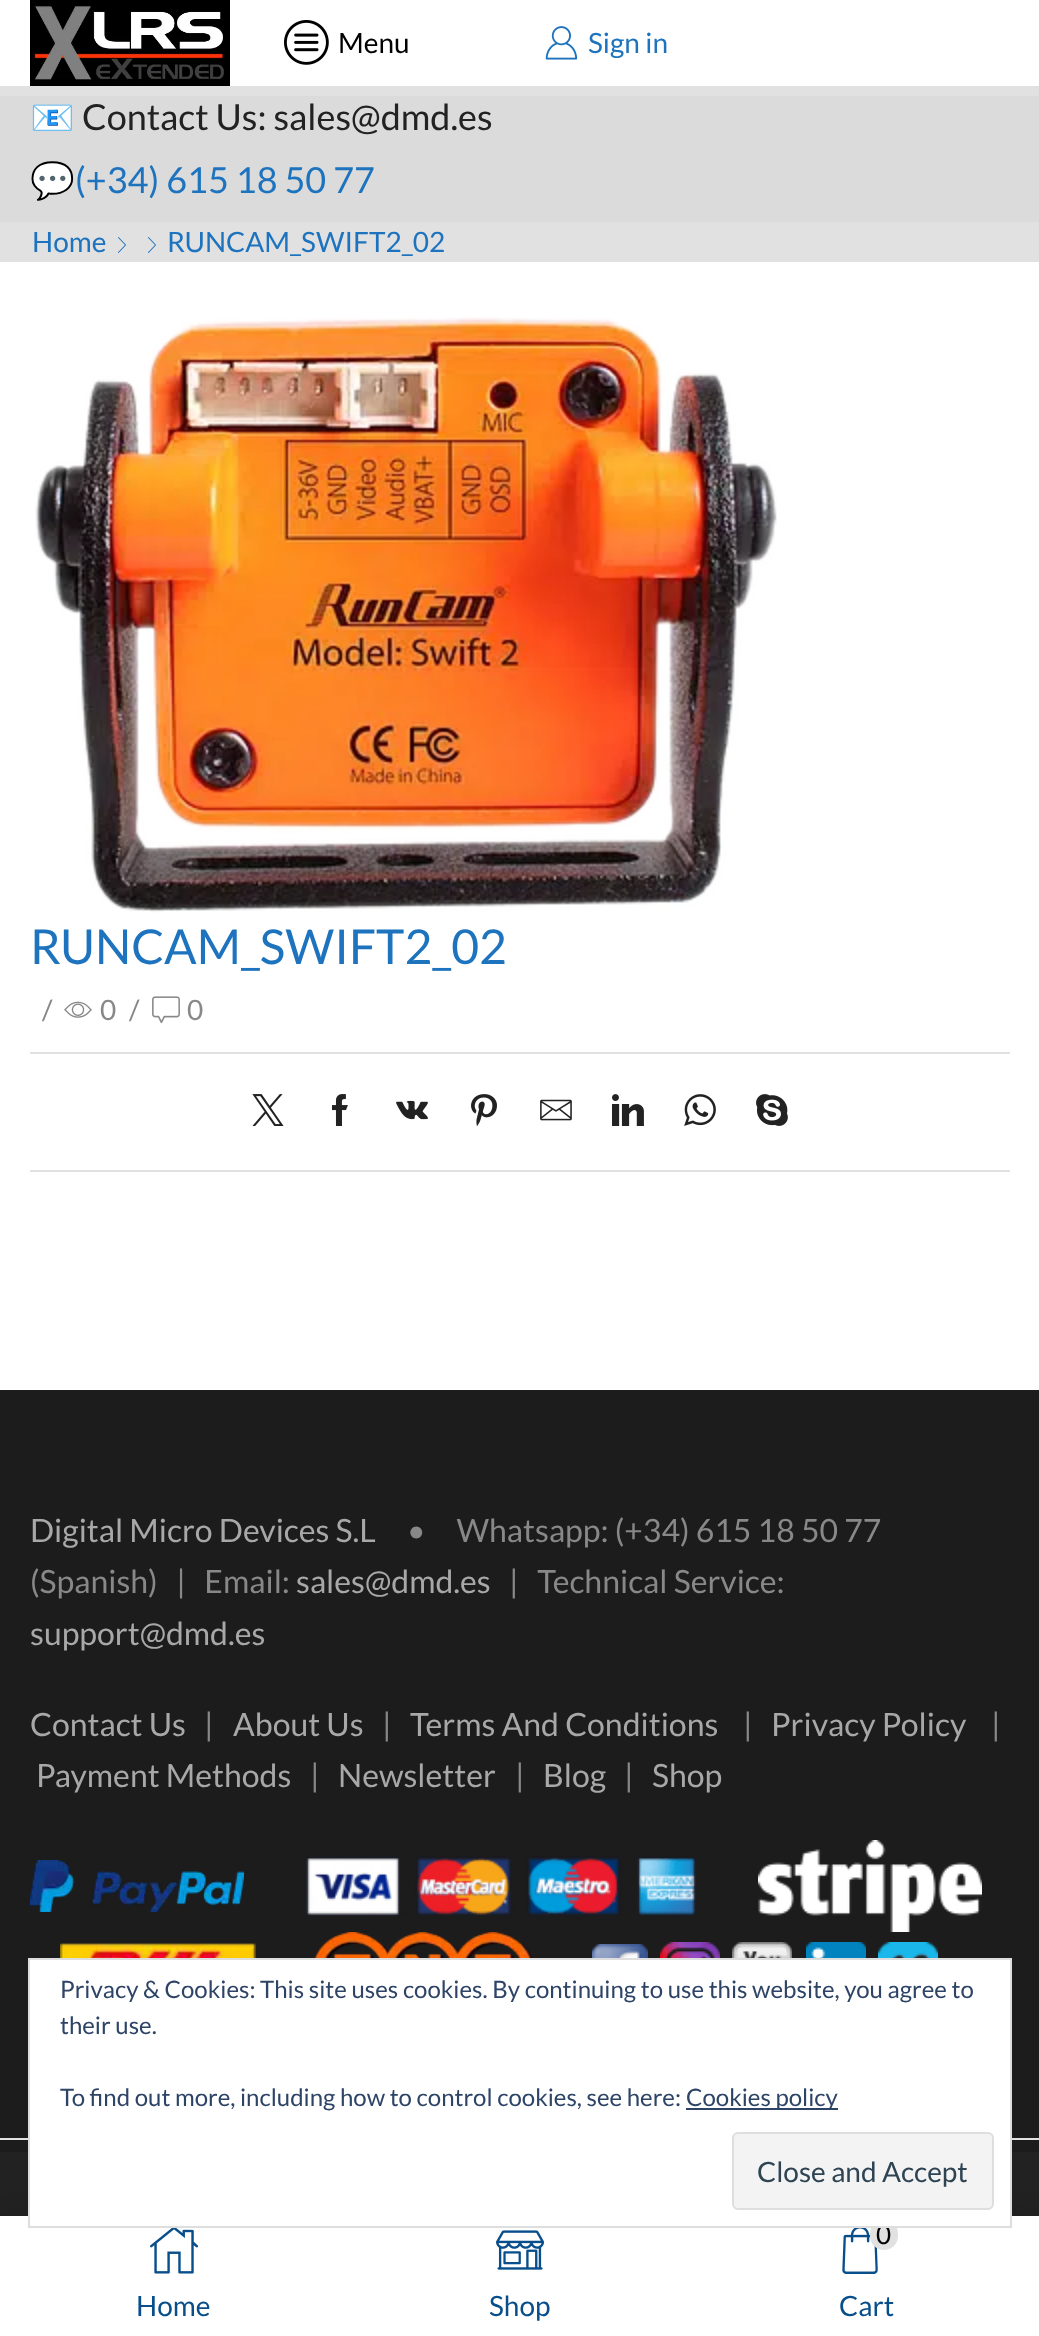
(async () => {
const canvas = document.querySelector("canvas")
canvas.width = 1039
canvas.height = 2336
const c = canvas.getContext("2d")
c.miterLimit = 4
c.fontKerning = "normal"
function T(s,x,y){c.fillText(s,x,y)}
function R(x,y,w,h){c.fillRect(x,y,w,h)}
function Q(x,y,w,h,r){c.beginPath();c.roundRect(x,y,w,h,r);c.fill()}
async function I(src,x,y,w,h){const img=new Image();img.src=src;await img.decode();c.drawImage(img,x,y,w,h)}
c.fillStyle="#fff"
R(0,0,1039,2336)
await I("1.png",30,0,200,86)
await I("2.png",284,20,45,45)
c.font="28px Lato"
c.fillStyle="#000"
T("Menu",338,53)
await I("3.png",545,26,33,34)
c.fillStyle="#1e73be"
T("Sign in",588,53)
c.fillStyle="#dbdbdb"
R(0,96,1039,126)
c.fillStyle="#e1e1e1"
R(0,86,1039,10)
c.font="36px Noto Color Emoji"
c.fillStyle="#222"
T("📧",30,130)
c.font="36px Lato"
T("Contact Us: sales@dmd.es",82,130)
c.font="36px Noto Color Emoji"
c.fillStyle="#1e73be"
T("💬",30,193)
c.font="36px Lato"
T("(+34) 615 18 50 77",75,193)
c.fillStyle="#e1e1e1"
R(0,222,1039,40)
c.font="28px Lato"
c.fillStyle="#1e73be"
T("Home",32,252)
await I("4.png",118,237,8,16)
await I("4.png",148,237,8,16)
T("RUNCAM_SWIFT2_02",167,252)
await I("5.png",35,317,742,596)
c.font="48px Lato"
T("RUNCAM_SWIFT2_02",30,964)
c.font="28px Lato"
c.fillStyle="#888"
T("/",42,1020)
await I("6.png",64,1001,28,17)
T("0",100,1020)
T("/",129,1020)
await I("7.png",152,996,28,28)
T("0",187,1020)
c.fillStyle="#e1e1e1"
R(30,1052,980,2)
R(30,1170,980,2)
await I("8.png",252,1094,32,32)
await I("9.png",332,1094,16,32)
await I("10.png",396,1100,32,20)
await I("11.png",471,1094,26,32)
await I("12.png",540,1099,32,22)
await I("13.png",612,1094,32,32)
await I("14.png",684,1094,32,32)
await I("15.png",756,1094,32,32)
c.fillStyle="#1c1c1c"
R(0,1390,1039,762)
c.font="32px Lato"
c.fillStyle="#a8a8a8"
T("Digital Micro Devices S.L",30,1542)
c.fillStyle="#888"
T("•     Whatsapp: (+34) 615 18 50 77",407,1542)
T("(Spanish)   |   Email:",30,1593)
c.fillStyle="#a8a8a8"
T("sales@dmd.es",296,1593)
c.fillStyle="#888"
T("|   Technical Service:",509,1593)
c.fillStyle="#a8a8a8"
T("support@dmd.es",30,1645)
T("Contact Us",30,1736)
c.fillStyle="#888"
T("|",204,1736)
c.fillStyle="#a8a8a8"
T("About Us",233,1736)
c.fillStyle="#888"
T("|",382,1736)
c.fillStyle="#a8a8a8"
T("Terms And Conditions",410,1736)
c.fillStyle="#888"
T("|",743,1736)
c.fillStyle="#a8a8a8"
T("Privacy Policy",771,1736)
c.fillStyle="#888"
T("|",991,1736)
c.fillStyle="#a8a8a8"
T("Payment Methods",36,1787)
c.fillStyle="#888"
T("|",310,1787)
c.fillStyle="#a8a8a8"
T("Newsletter",338,1787)
c.fillStyle="#888"
T("|",515,1787)
c.fillStyle="#a8a8a8"
T("Blog",543,1787)
c.fillStyle="#888"
T("|",624,1787)
c.fillStyle="#a8a8a8"
T("Shop",652,1787)
await I("16.png",30,1860,214,52)
await I("17.png",306,1856,390,60)
await I("18.png",758,1840,224,92)
await I("19.png",60,1943,196,15)
await I("20.png",314,1932,220,26)
await I("21.png",592,1944,56,14)
await I("22.png",660,1942,60,16)
await I("23.png",732,1942,60,16)
await I("24.png",806,1942,60,16)
await I("25.png",878,1942,60,16)
c.fillStyle="#e1e1e1"
R(0,2138,1039,2)
c.fillStyle="#222"
R(0,2152,1039,64)
c.fillStyle="#00000026"
c.filter="blur(12px)"
c.beginPath()
c.rect(4,2216,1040,120)
c.fill()
c.filter="none"
c.fillStyle="#fff"
R(0,2216,1039,120)
await I("26.png",150,2228,48,46)
c.font="28px Lato"
c.fillStyle="#084e8b"
T("Home",136,2316)
await I("27.png",496,2230,48,40)
T("Shop",489,2316)
await I("28.png",842,2228,36,46)
c.fillStyle="#e1e1e1"
Q(870,2220,28,30,14)
c.font="26px Lato"
c.fillStyle="#000"
T("0",876,2244)
c.font="28px Lato"
c.fillStyle="#084e8b"
T("Cart",839,2316)
c.fillStyle="#fff"
c.beginPath()
c.rect(29,1959,982,268)
c.fill()
c.strokeStyle="#dedede"
c.lineWidth=2
c.stroke()
c.font="24px Lato"
c.fillStyle="#2e4467"
T("Privacy & Cookies: This site uses cookies. By continuing to use this website, you agree to",60,1998)
T("their use.",60,2034)
T("To find out more, including how to control cookies, see here:",60,2106)
R(686,2108,152,2)
T("Cookies policy",686,2106)
c.fillStyle="#f3f3f3"
c.beginPath()
c.roundRect(733,2133,260,76,5)
c.fill()
c.stroke()
c.font="28px Lato"
c.fillStyle="#2e4453"
T("Close and Accept",757,2182)
})()
